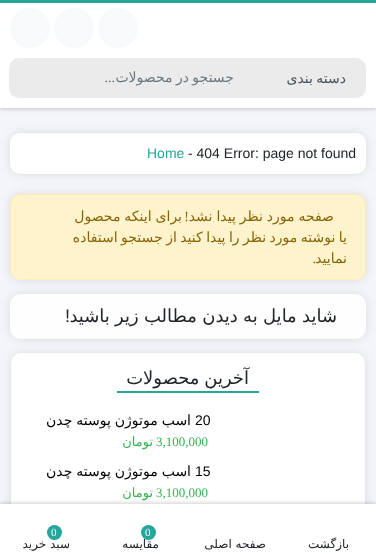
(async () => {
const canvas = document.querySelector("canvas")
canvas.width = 376
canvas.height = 557
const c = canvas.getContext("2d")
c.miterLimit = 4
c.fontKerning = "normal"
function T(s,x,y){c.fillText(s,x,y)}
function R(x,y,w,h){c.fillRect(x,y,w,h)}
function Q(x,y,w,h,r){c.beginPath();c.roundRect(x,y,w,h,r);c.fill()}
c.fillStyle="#f4f5f9"
R(0,0,376,557)
c.fillStyle="#00000030"
c.filter="blur(2px)"
c.beginPath()
c.rect(0,1,376,108)
c.fill()
c.filter="none"
c.fillStyle="#fff"
R(0,3,376,105)
c.fillStyle="#26a69a"
R(0,0,376,3)
c.fillStyle="#f8f9fa"
c.beginPath()
c.arc(118,28,20,0,7)
c.fill()
c.beginPath()
c.arc(74,28,20,0,7)
c.fill()
c.beginPath()
c.arc(30,28,20,0,7)
c.fill()
c.fillStyle="#ebebeb"
c.beginPath()
c.roundRect(246,58,120,40,[0,10,10,0])
c.fill()
c.wordSpacing="-1px"
c.direction="rtl"
c.font="14px DejaVu Sans"
c.fillStyle="#495057"
T("دسته بندی",346,83)
c.fillStyle="#ebebeb"
R(45,58,201,40)
c.fillStyle="#6c757d"
T("جستجو در محصولات",234,82)
c.wordSpacing="0px"
c.font="14px Liberation Serif"
T("...",115,82)
c.fillStyle="#ebebeb"
c.beginPath()
c.roundRect(9,58,36,40,[10,0,0,10])
c.fill()
c.fillStyle="#0000001a"
c.filter="blur(5px)"
c.beginPath()
c.roundRect(10,133,356,41,10)
c.fill()
c.filter="none"
c.fillStyle="#fff"
Q(10,133,356,41,10)
c.direction="ltr"
c.font="14px Liberation Sans"
c.fillStyle="#212529"
T("- 404 Error: page not found",188,158)
c.fillStyle="#26a69a"
T("Home",147,158)
c.fillStyle="#0000001a"
c.filter="blur(5px)"
c.beginPath()
c.roundRect(10,194,356,86,10)
c.fill()
c.filter="none"
c.fillStyle="#fff3cd"
c.beginPath()
c.roundRect(10.5,194.5,355,85,9.5)
c.fill()
c.strokeStyle="#ffeeba"
c.stroke()
c.wordSpacing="-0.5px"
c.direction="rtl"
c.font="14px DejaVu Sans"
c.fillStyle="#856404"
T("صفحه مورد نظر پیدا نشد",334,221)
c.wordSpacing="0px"
c.font="14px Liberation Serif"
T("!",189,221)
c.wordSpacing="-0.5px"
c.font="14px DejaVu Sans"
T("برای اینکه محصول",182,221)
c.wordSpacing="-1px"
T("یا نوشته مورد نظر را پیدا کنید از جستجو استفاده",347,242)
c.wordSpacing="0px"
T("نمایید",347,263)
c.font="14px Liberation Serif"
T(".",316,263)
c.fillStyle="#0000001a"
c.filter="blur(5px)"
c.beginPath()
c.roundRect(10,294,356,45,10)
c.fill()
c.filter="none"
c.fillStyle="#fefefe"
c.beginPath()
c.roundRect(10.5,294.5,355,44,9.5)
c.fill()
c.strokeStyle="#fdfdfe"
c.stroke()
c.wordSpacing="-0.5px"
c.font="18px DejaVu Sans"
c.fillStyle="#212529"
T("شاید مایل به دیدن مطالب زیر باشید",337,322)
c.wordSpacing="0px"
c.font="18px Liberation Sans"
T("!",70,322)
c.fillStyle="#0000001a"
c.filter="blur(5px)"
c.beginPath()
c.roundRect(11,353,354,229,10)
c.fill()
c.filter="none"
c.fillStyle="#fff"
Q(11,353,354,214,10)
c.fillStyle="#26a69a"
R(117,391,142,2)
c.wordSpacing="-1px"
c.font="18px DejaVu Sans"
c.fillStyle="#212529"
T("آخرین محصولات",249,384)
c.wordSpacing="0px"
c.direction="ltr"
c.font="14px Liberation Sans"
c.fillStyle="#000"
T("20",195,425)
c.wordSpacing="-0.5px"
c.direction="rtl"
c.font="14px DejaVu Sans"
T("اسب موتوژن پوسته چدن",191,425)
c.wordSpacing="0px"
c.direction="ltr"
c.font="13px Liberation Serif"
c.fillStyle="#39b156"
T("3,100,000",156,446)
c.direction="rtl"
c.font="13px DejaVu Sans"
T("تومان",153,446)
c.direction="ltr"
c.font="14px Liberation Sans"
c.fillStyle="#000"
T("15",195,476)
c.wordSpacing="-0.5px"
c.direction="rtl"
c.font="14px DejaVu Sans"
T("اسب موتوژن پوسته چدن",191,476)
c.wordSpacing="0px"
c.direction="ltr"
c.font="13px Liberation Serif"
c.fillStyle="#39b156"
T("3,100,000",156,497)
c.direction="rtl"
c.font="13px DejaVu Sans"
T("تومان",153,497)
c.fillStyle="#00000030"
c.filter="blur(2px)"
c.beginPath()
c.rect(0,503,376,53)
c.fill()
c.filter="none"
c.fillStyle="#fff"
R(0,504,376,53)
c.font="12px DejaVu Sans"
c.fillStyle="#212529"
T("بازگشت",349,548)
T("صفحه اصلی",266,548)
T("مقایسه",159,548)
c.fillStyle="#26a69a"
c.beginPath()
c.arc(148.5,532.5,7.5,0,7)
c.fill()
c.direction="ltr"
c.font="11px Liberation Serif"
c.fillStyle="#fff"
T("0",145,536)
c.fillStyle="#26a69a"
c.beginPath()
c.arc(54.5,532.5,7.5,0,7)
c.fill()
c.fillStyle="#fff"
T("0",51,536)
c.direction="rtl"
c.font="12px DejaVu Sans"
c.fillStyle="#212529"
T("سبد خرید",70,548)
})()
